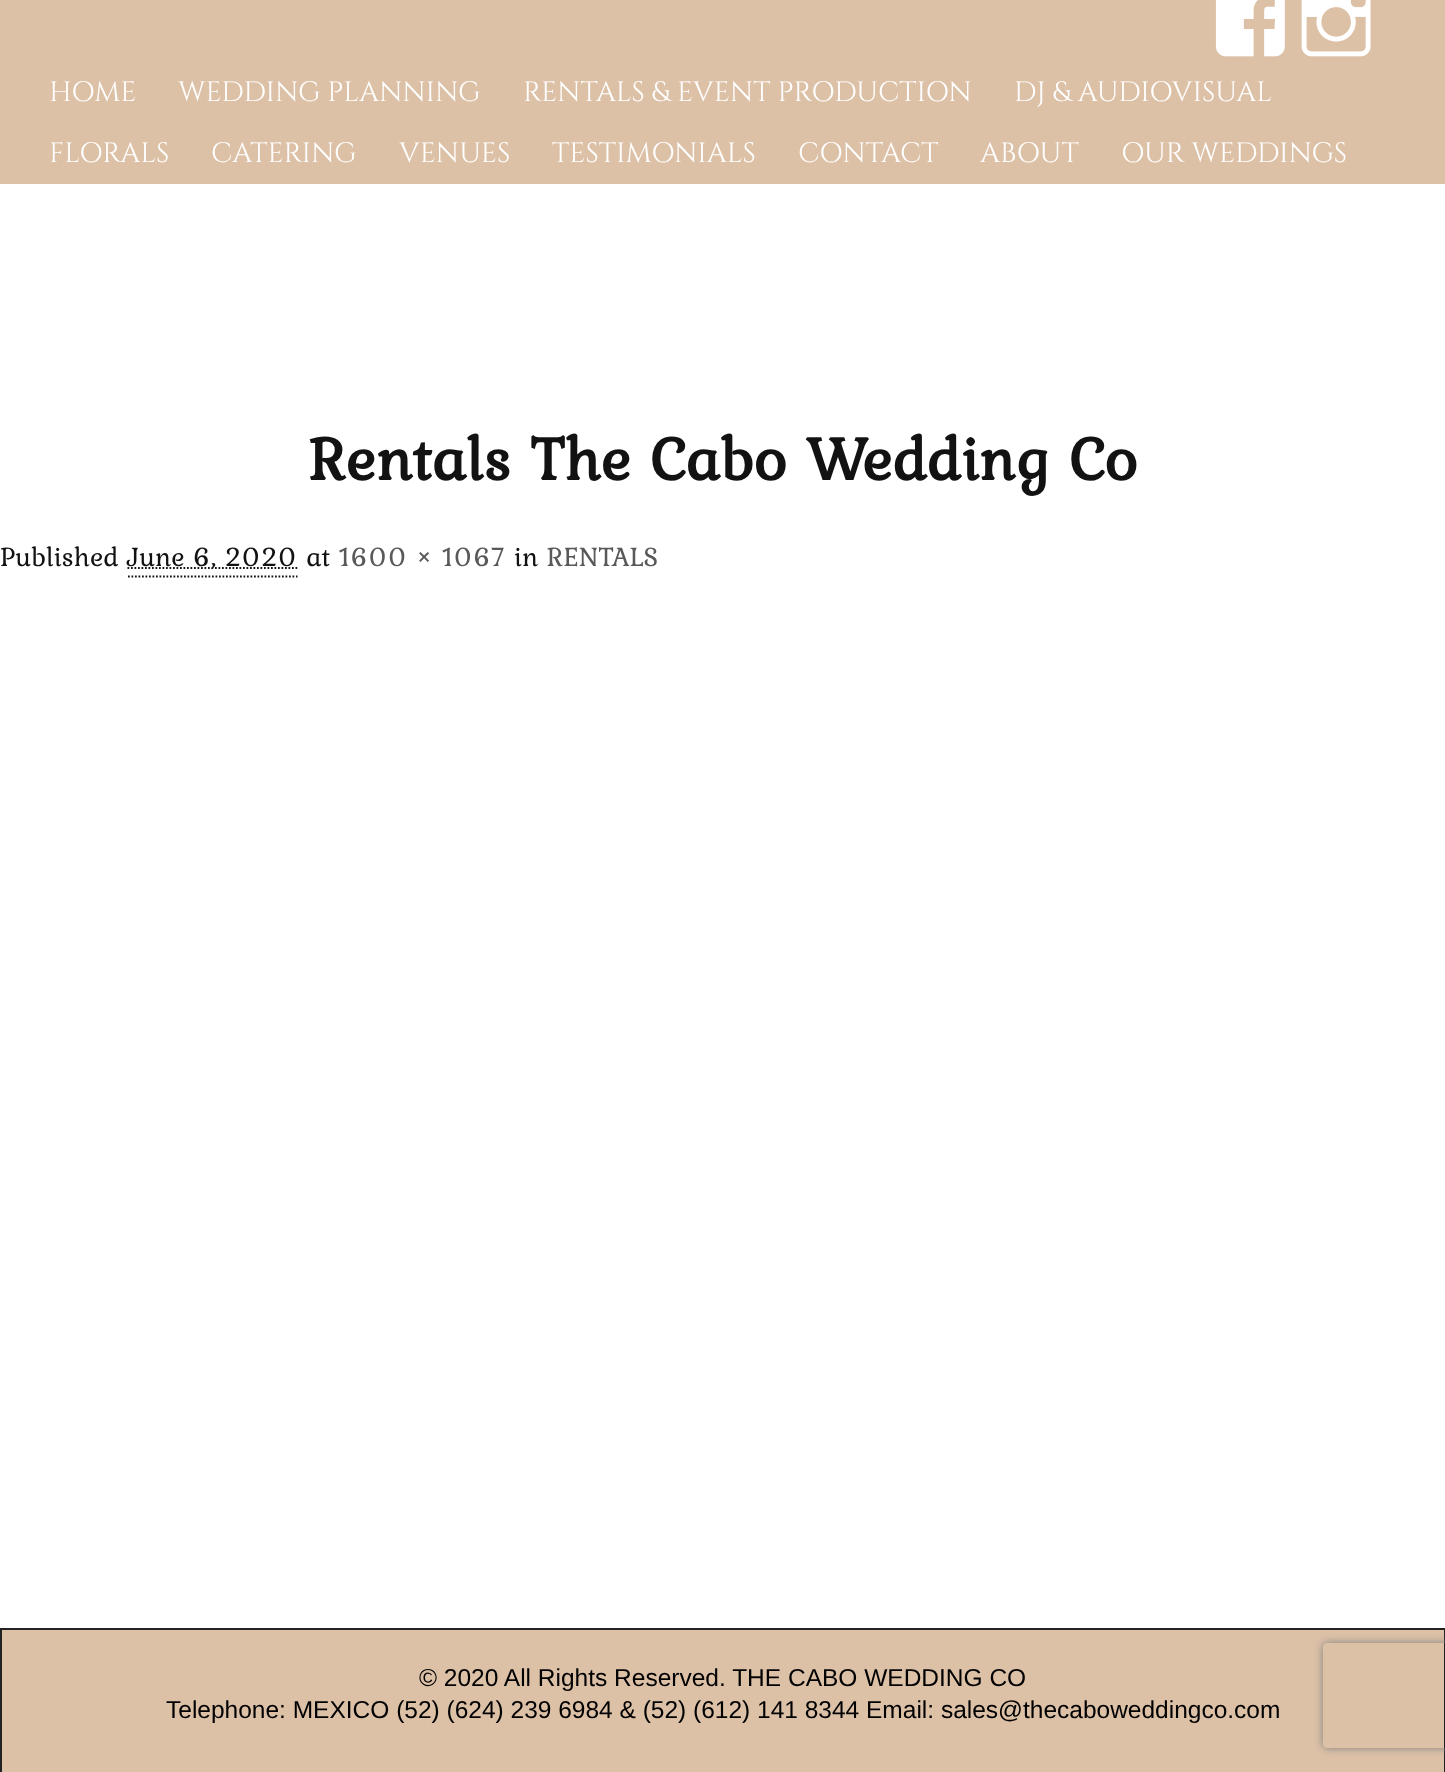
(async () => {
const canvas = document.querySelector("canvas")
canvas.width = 1445
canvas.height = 1772
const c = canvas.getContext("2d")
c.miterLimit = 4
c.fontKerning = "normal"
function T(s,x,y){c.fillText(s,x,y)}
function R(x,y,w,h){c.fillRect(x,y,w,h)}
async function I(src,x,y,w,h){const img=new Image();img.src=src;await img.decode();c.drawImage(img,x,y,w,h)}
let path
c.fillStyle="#fff"
R(0,0,1445,1772)
c.fillStyle="#ddc1a7"
R(0,0,1445,184)
await I("1.png",1215,0,70,57)
await I("2.png",1301,0,70,57)
c.font="28px Cinzel"
c.fillStyle="#fff"
T("HOME",49,101)
T("WEDDING PLANNING",178,101)
T("RENTALS & EVENT PRODUCTION",523,101)
T("DJ & AUDIOVISUAL",1014,101)
T("FLORALS",49,162)
T("CATERING",211,162)
T("VENUES",399,162)
T("TESTIMONIALS",552,162)
T("CONTACT",798,162)
T("ABOUT",980,162)
T("OUR WEDDINGS",1121,162)
c.font="bold 63px Kurale"
c.fillStyle="#121212"
T("Rentals The Cabo Wedding Co",309,480)
c.font="28px Kurale"
T("Published",0,566)
path = new Path2D("M127.5 568h170.5")
c.strokeStyle="#121212"
c.lineWidth=1.8
c.setLineDash([1.75,1.75])
c.stroke(path)
T("June 6, 2020 at",127,566)
path = new Path2D("M128 576.5h169.5")
c.stroke(path)
c.fillStyle="#595959"
T("1600 × 1067",339,566)
c.fillStyle="#121212"
T("in",514,566)
c.fillStyle="#595959"
T("RENTALS",547,566)
c.fillStyle="#ddc1a7"
c.beginPath()
c.rect(1,1629,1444,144)
c.fill()
c.strokeStyle="#222"
c.lineWidth=2
c.setLineDash([])
c.stroke()
c.font="24.5px Liberation Sans"
c.fillStyle="#000"
T("© 2020 All Rights Reserved. THE CABO WEDDING CO",419,1686)
T("Telephone: MEXICO (52) (624) 239 6984 & (52) (612) 141 8344 Email: sales@thecaboweddingco.com",166,1718)
c.save()
path = new Path2D("M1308 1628h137v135h-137zm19 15h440c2 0 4 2 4 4v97c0 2-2 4-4 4h-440c-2 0-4-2-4-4v-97c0-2 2-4 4-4z")
c.clip(path,"evenodd")
c.fillStyle="#808080"
c.filter="blur(4.5px)"
c.beginPath()
c.roundRect(1323,1643,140,105,4)
c.fill()
c.filter="none"
c.restore()
})()
